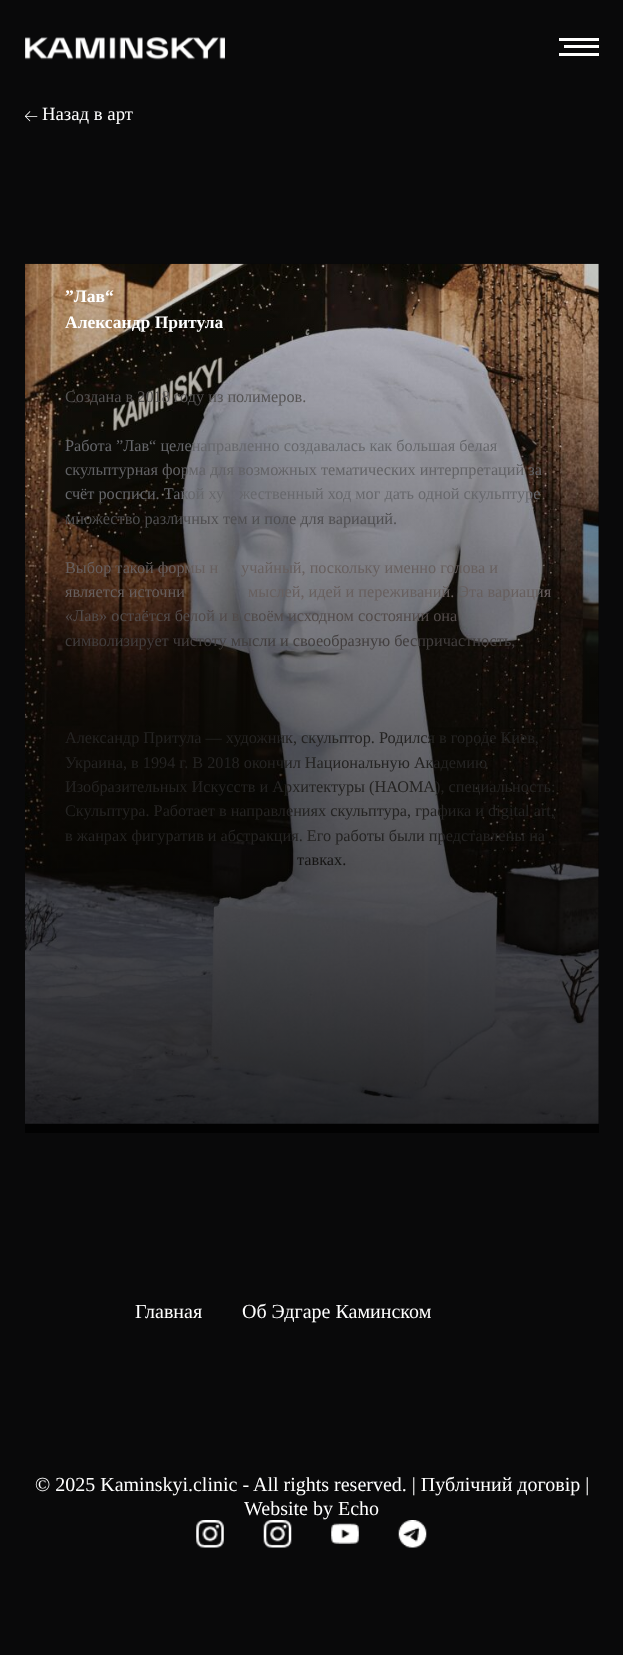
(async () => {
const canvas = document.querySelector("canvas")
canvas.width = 623
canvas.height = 1655
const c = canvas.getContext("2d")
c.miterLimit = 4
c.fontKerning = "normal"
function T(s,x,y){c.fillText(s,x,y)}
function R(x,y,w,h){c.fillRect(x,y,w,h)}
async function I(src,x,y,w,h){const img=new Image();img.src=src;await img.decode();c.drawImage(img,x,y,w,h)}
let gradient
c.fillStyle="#09090a"
R(0,0,623,1655)
await I("1.png",25,37,200,23)
c.fillStyle="#fff"
R(559,38,40,3)
R(564,45,35,3)
R(559,53,40,3)
await I("2.png",25,111,13,11)
c.font="18.75px Liberation Serif"
T("Назад в арт",42,120)
await I("3.png",25,263,574,861)
gradient = c.createLinearGradient(312,264,312,1133)
gradient.addColorStop(0,"#00000000")
gradient.addColorStop(1,"#000000c9")
c.fillStyle = gradient
R(25,288,574,845)
c.font="bold 17.5px Liberation Serif"
c.fillStyle="#fff"
T("”Лав“",65,302)
T("Александр Притула",65,328)
c.font="16.25px Liberation Serif"
c.fillStyle="#565454"
T("Создана в 2018 году из полимеров.",65,402)
c.fillStyle="#66676b"
T("Работа ”Лав“ целенаправленно создавалась как большая белая",65,451)
c.fillStyle="#626265"
T("скульптурная форма для возможных тематических интерпретаций за",65,475)
c.fillStyle="#66676b"
T("счёт росписи. Такой ху",65,499)
T("жественный ход мог дать одной скульптуре",239,499)
c.fillStyle="#504f51"
T("множество различных тем и поле для вариаций.",65,524)
c.fillStyle="#675f5e"
T("Выбор такой формы н",65,573)
T("учайный, поскольку именно голова и",241,573)
T("является источни",65,597)
T("мыслей, идей и переживаний. Эта вариация",248,597)
c.fillStyle="#524b4a"
T("«Лав» остаётся белой и в своём исходном состоянии она",65,621)
c.fillStyle="#423e3e"
T("символизирует чистоту мысли и своеобразную беспричастность,",65,646)
c.fillStyle="#242322"
T("Александр Притула — художник, скульптор. Родился в городе Киев,",65,743)
T("Украина, в 1994 г. В 2018 окончил Национальную Академию",65,768)
T("Изобразительных Искусств и Архитектуры (НАОМА), специальность:",65,792)
T("Скульптура. Работает в направлениях скульптура, графика и digital art,",65,816)
T("в жанрах фигуратив и абстракция. Его работы были представлены на",65,841)
c.fillStyle="#151413"
T("тавках.",297,865)
c.font="20px Liberation Serif"
c.fillStyle="#fff"
T("Главная",135,1318)
T("Об Эдгаре Каминском",242,1318)
T("© 2025 Kaminskyi.clinic - All rights reserved. | Публічний договір |",35,1491)
T("Website by Echo",244,1515)
await I("4.png",196,1520,28,28)
await I("5.png",263,1520,29,28)
await I("6.png",331,1523,28,21)
await I("7.png",398,1520,29,28)
})()
